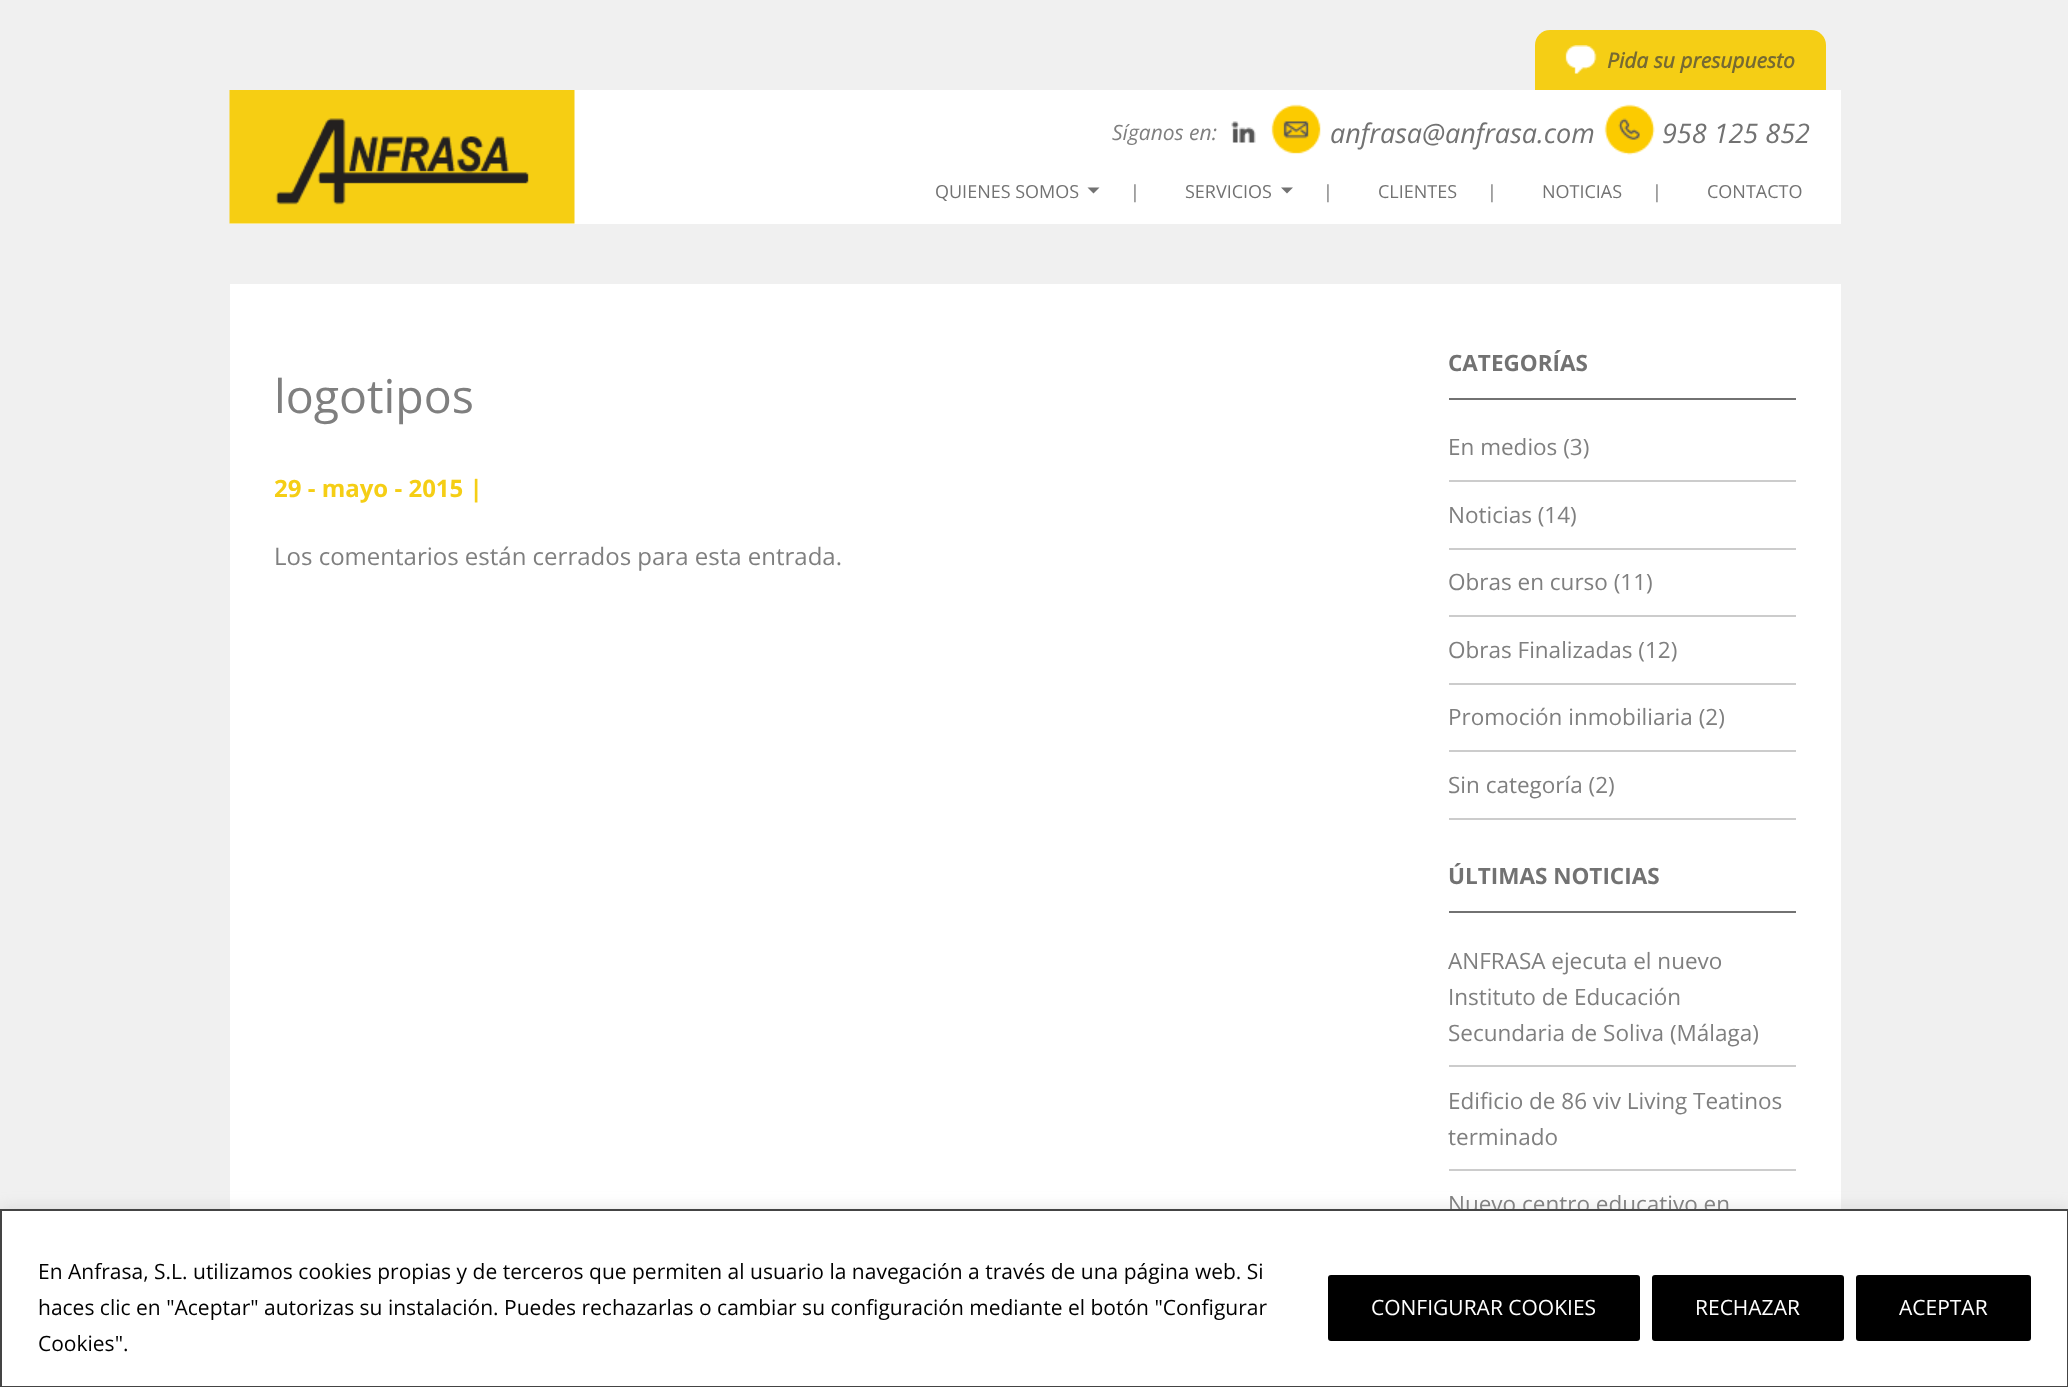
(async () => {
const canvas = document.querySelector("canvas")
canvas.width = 2068
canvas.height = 1387
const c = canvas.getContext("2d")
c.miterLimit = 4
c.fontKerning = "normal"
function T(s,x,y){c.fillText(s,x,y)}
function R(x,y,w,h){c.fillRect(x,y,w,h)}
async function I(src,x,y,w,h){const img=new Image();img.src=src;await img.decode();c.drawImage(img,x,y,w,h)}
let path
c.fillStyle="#f0f0f0"
R(0,0,2068,1387)
c.fillStyle="#fff"
R(230,90,1611,134)
await I("1.png",229,90,346,134)
c.fillStyle="#f5ce15"
c.beginPath()
c.roundRect(1535,30,291,60,[15,15,0,0])
c.fill()
await I("2.png",1565,45,32,29)
c.font="italic bold 21px Open Sans"
c.fillStyle="#766a32"
T("Pida su presupuesto",1607,68)
c.font="italic 21px Open Sans"
c.fillStyle="#7f7f7f"
T("Síganos en:",1112,140)
await I("3.png",1231,121,25,22)
await I("4.png",1271,104,50,50)
c.font="italic 27px Open Sans"
c.fillStyle="#727272"
T("anfrasa@anfrasa.com",1330,143)
await I("5.png",1604,104,51,51)
T("958 125 852",1662,143)
c.font="18px Open Sans"
T("QUIENES SOMOS",935,198)
path = new Path2D("M1087.5 187.5h12l-6 6z")
c.fill(path)
T("|",1130,198)
T("SERVICIOS",1185,198)
path = new Path2D("M1281 187.5h12l-6 6z")
c.fill(path)
T("|",1323,198)
T("CLIENTES",1378,198)
T("|",1487,198)
T("NOTICIAS",1542,198)
T("|",1652,198)
T("CONTACTO",1707,198)
c.fillStyle="#fff"
R(230,284,1611,925)
c.font="46.5px Open Sans"
c.fillStyle="#7f7f7f"
T("logotipos",274,413)
c.font="bold 24px Open Sans"
c.fillStyle="#f5ce15"
T("29 - mayo - 2015 |",274,497)
c.font="24px Open Sans"
c.fillStyle="#7f7f7f"
T("Los comentarios están cerrados para esta entrada.",274,565)
c.fillStyle="#727272"
R(1449,398,347,2)
c.font="bold 22.5px Open Sans"
T("CATEGORÍAS",1448,371)
c.fillStyle="#ccc"
R(1449,480,347,2)
c.font="22.5px Open Sans"
c.fillStyle="#7f7f7f"
T("En medios (3)",1448,455)
c.fillStyle="#ccc"
R(1449,548,347,2)
c.fillStyle="#7f7f7f"
T("Noticias (14)",1448,523)
c.fillStyle="#ccc"
R(1449,615,347,2)
c.fillStyle="#7f7f7f"
T("Obras en curso (11)",1448,590)
c.fillStyle="#ccc"
R(1449,683,347,2)
c.fillStyle="#7f7f7f"
T("Obras Finalizadas (12)",1448,658)
c.fillStyle="#ccc"
R(1449,750,347,2)
c.fillStyle="#7f7f7f"
T("Promoción inmobiliaria (2)",1448,725)
c.fillStyle="#ccc"
R(1449,818,347,2)
c.fillStyle="#7f7f7f"
T("Sin categoría (2)",1448,793)
c.fillStyle="#727272"
R(1449,911,347,2)
c.font="bold 22.5px Open Sans"
T("ÚLTIMAS NOTICIAS",1448,884)
c.fillStyle="#ccc"
R(1449,1065,347,2)
c.font="22.5px Open Sans"
c.fillStyle="#7f7f7f"
T("ANFRASA ejecuta el nuevo",1448,969)
T("Instituto de Educación",1448,1005)
T("Secundaria de Soliva (Málaga)",1448,1041)
c.fillStyle="#ccc"
R(1449,1169,347,2)
c.fillStyle="#7f7f7f"
T("Edificio de 86 viv Living Teatinos",1448,1109)
T("terminado",1448,1145)
T("Nuevo centro educativo en",1448,1212)
c.fillStyle="#acabab4d"
c.filter="blur(7.5px)"
c.beginPath()
c.rect(0,1208,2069,178)
c.fill()
c.filter="none"
c.fillStyle="#fff"
c.beginPath()
c.rect(1,1210,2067,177)
c.fill()
c.strokeStyle="#444"
c.lineWidth=2
c.stroke()
c.font="21px Open Sans"
c.fillStyle="#000"
T("En Anfrasa, S.L. utilizamos cookies propias y de terceros que permiten al usuario la navegación a través de una página web. Si",38,1279)
T("haces clic en \"Aceptar\" autorizas su instalación. Puedes rechazarlas o cambiar su configuración mediante el botón \"Configurar",38,1315)
T("Cookies\".",38,1351)
c.beginPath()
c.roundRect(1329.5,1276.5,309,63,1.5)
c.fill()
c.strokeStyle="#000"
c.lineWidth=3
c.stroke()
c.fillStyle="#fff"
T("CONFIGURAR COOKIES",1371,1315)
c.fillStyle="#000"
c.beginPath()
c.roundRect(1653.5,1276.5,189,63,1.5)
c.fill()
c.stroke()
c.fillStyle="#fff"
T("RECHAZAR",1695,1315)
c.fillStyle="#000"
c.beginPath()
c.roundRect(1857.5,1276.5,172,63,1.5)
c.fill()
c.stroke()
c.fillStyle="#fff"
T("ACEPTAR",1899,1315)
})()
